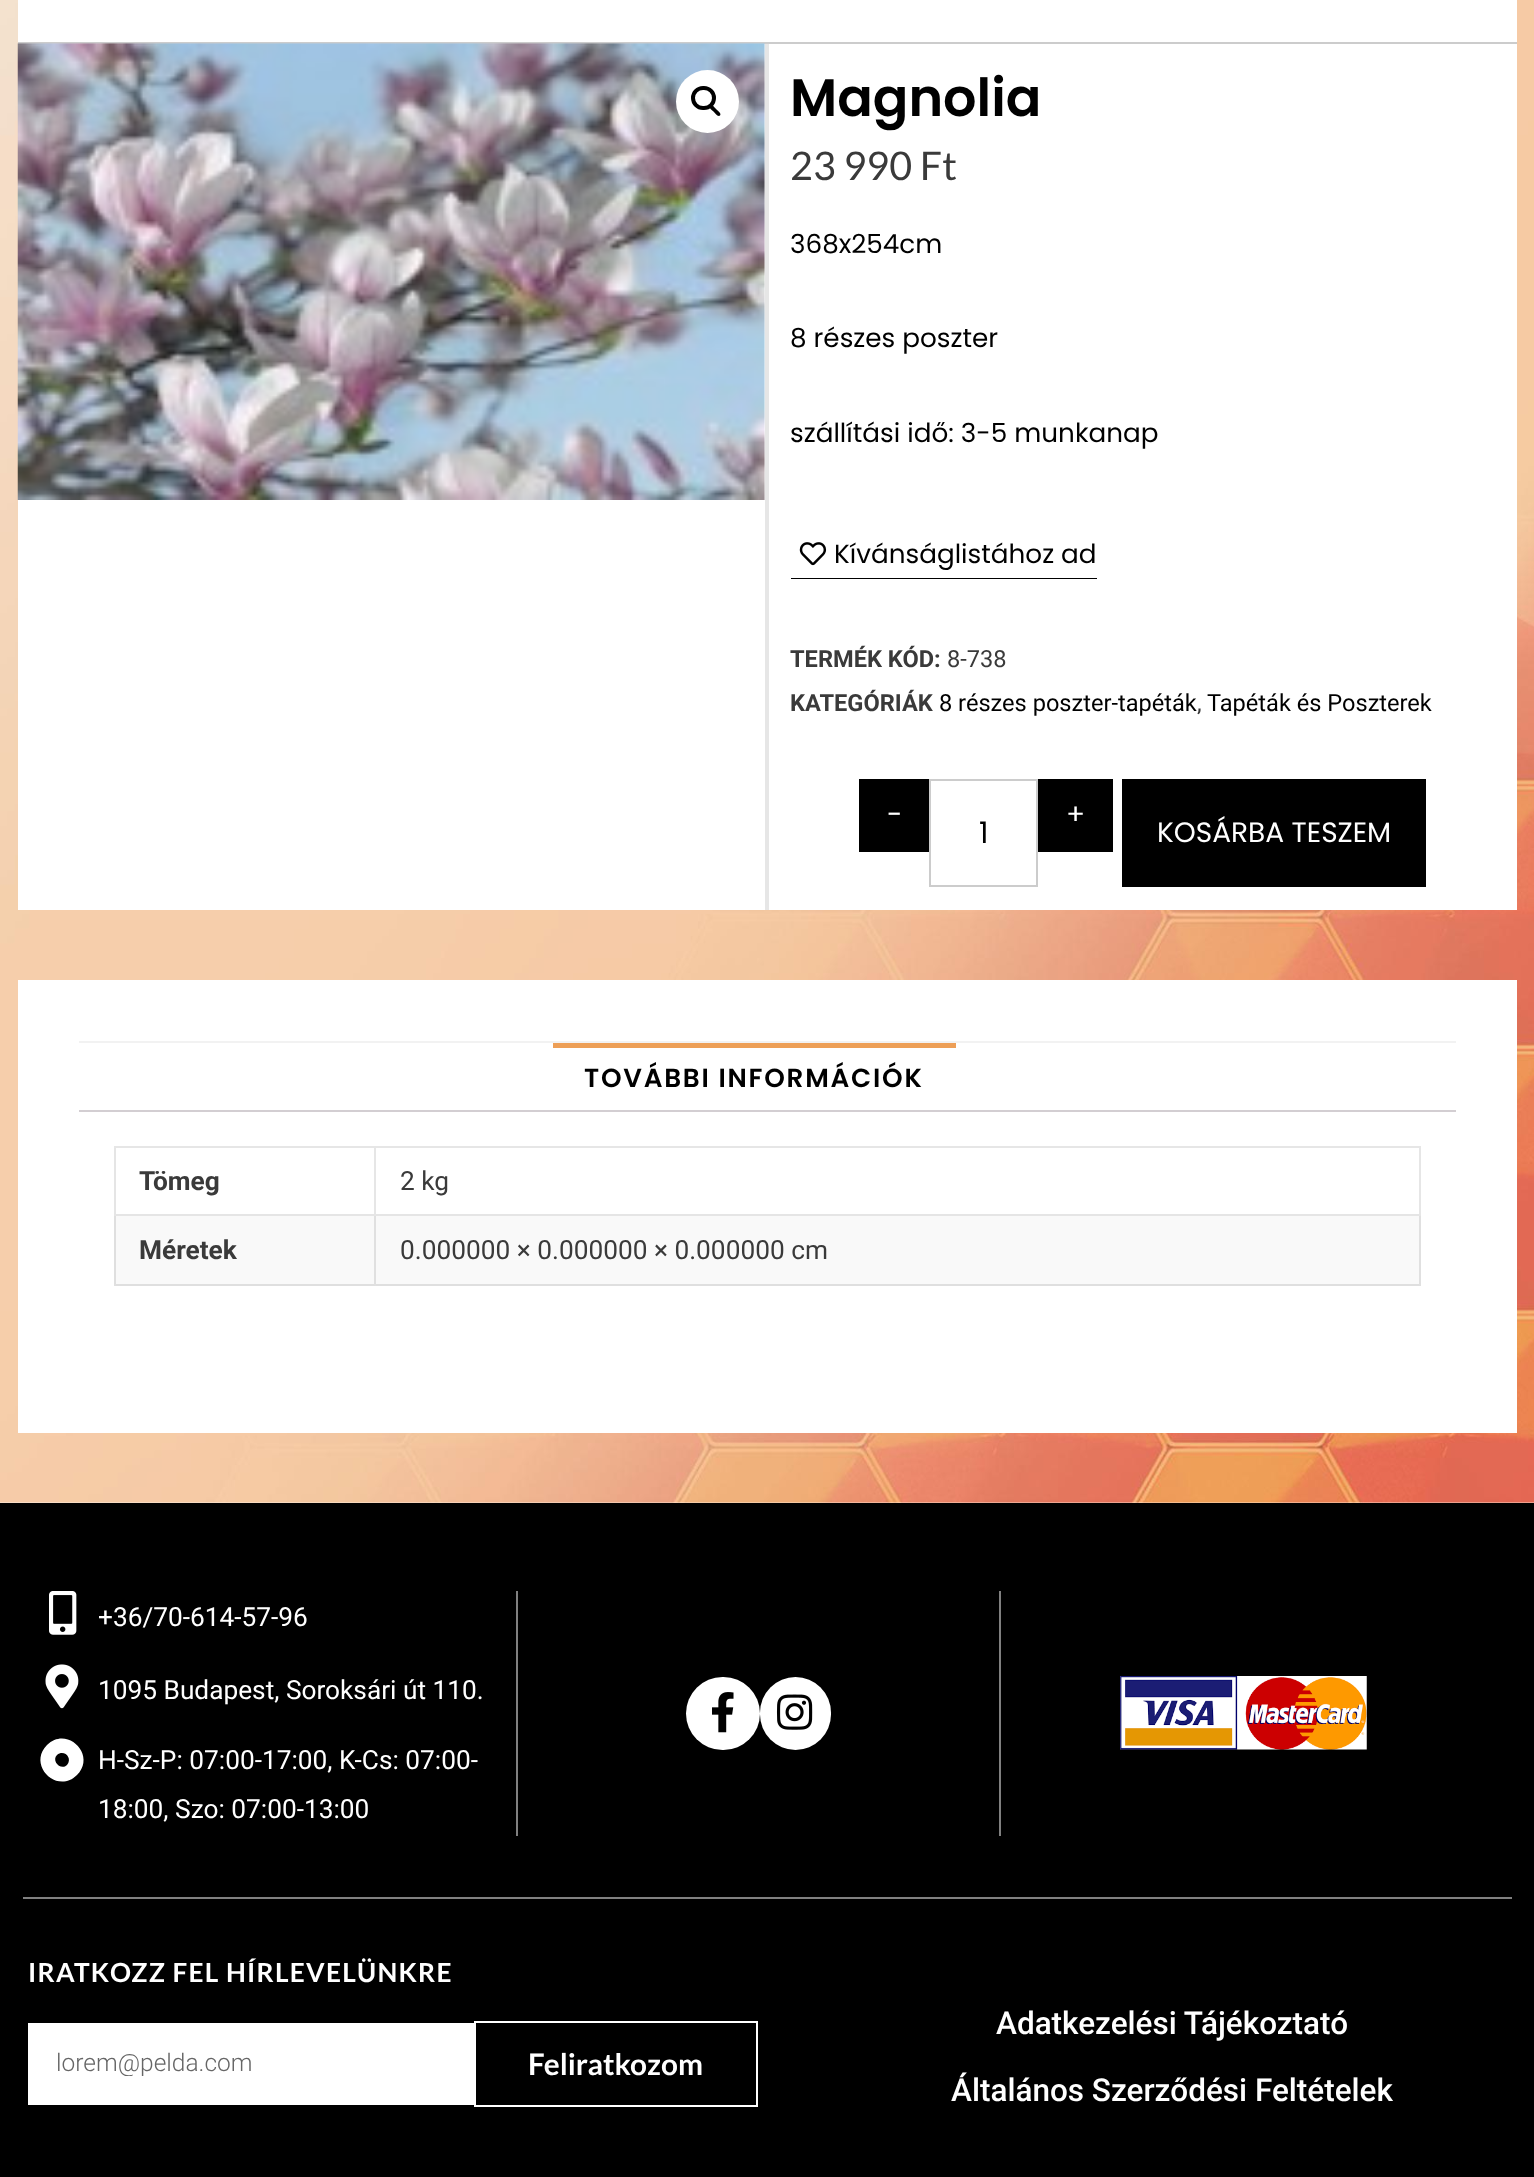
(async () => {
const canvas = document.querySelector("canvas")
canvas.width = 1534
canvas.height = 2177
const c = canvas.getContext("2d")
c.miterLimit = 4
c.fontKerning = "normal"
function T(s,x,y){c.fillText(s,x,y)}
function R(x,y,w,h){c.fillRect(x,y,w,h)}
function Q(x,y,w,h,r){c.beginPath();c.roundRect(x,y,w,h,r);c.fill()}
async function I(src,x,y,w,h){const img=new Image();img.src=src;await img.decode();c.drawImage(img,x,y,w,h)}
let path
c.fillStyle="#fff"
R(0,0,1534,2177)
await I("1.png",0,0,1534,1503)
R(18,0,1499,42)
c.fillStyle="#ccc"
R(18,42,1499,2)
c.fillStyle="#fff"
R(18,44,1499,866)
c.fillStyle="#e6e6e6"
R(765,44,4,866)
await I("2.png",17,43,748,457)
c.fillStyle="#fff"
c.beginPath()
c.arc(707.5,101.5,31.5,0,7)
c.fill()
c.beginPath()
c.roundRect(693,88,21,20,10)
c.strokeStyle="#000"
c.lineWidth=4
c.stroke()
c.fillStyle="#000"
path = new Path2D("M710 105.5c2-2 5 2.5 6 3.5c1 1 6 4.5 4 6.5c-2 2-5.5-3-6.5-4c-1-1-5.5-4-3.5-6z")
c.fill(path)
c.font="600 52.5px Poppins"
T("Magnolia",790,116)
c.font="39.5px Lato"
c.fillStyle="#3a3a3a"
T("23 990 Ft",790,180)
c.font="26.25px Poppins"
c.fillStyle="#000"
T("368x254cm",790,253)
T("8 részes poszter",790,347)
T("szállítási idő: 3-5 munkanap",790,442)
await I("3.png",799,542,28,24)
T("Kívánságlistához ad",834,563)
R(791,578,306,1)
c.font="bold 23.6px Roboto"
c.fillStyle="#3a3a3a"
T("TERMÉK KÓD:",790,667)
c.font="23.6px Roboto"
T("8-738",947,667)
c.font="bold 23.6px Roboto"
T("KATEGÓRIÁK",790,711)
c.font="23.6px Roboto"
c.fillStyle="#000"
T("8 részes poszter-tapéták",939,711)
c.fillStyle="#3a3a3a"
T(",",1197,711)
c.fillStyle="#000"
T("Tapéták és Poszterek",1207,711)
R(859,779,70,73)
c.font="28px Poppins"
c.fillStyle="#fff"
T("-",887,824)
c.fillStyle="#000"
R(1038,779,75,73)
c.fillStyle="#fff"
T("+",1066,824)
c.strokeStyle="#ccc"
c.lineWidth=2
c.strokeRect(930,780,107,106)
c.font="29.75px Poppins"
c.fillStyle="#000"
T("1",979,843)
R(1122,779,304,108)
c.font="28px Poppins"
c.fillStyle="#fff"
T("KOSÁRBA TESZEM",1157,842)
R(18,980,1499,453)
c.fillStyle="#f2f2f2"
R(79,1041,1377,2)
c.fillStyle="#ed9f57"
R(553,1043,403,5)
c.letterSpacing="1.75px"
c.font="600 26.25px Poppins"
c.fillStyle="#000"
T("TOVÁBBI INFORMÁCIÓK",584,1087)
c.fillStyle="#d3ced2"
R(79,1110,1377,2)
c.fillStyle="#e6e6e6"
R(114,1146,1307,2)
path = new Path2D("M376 1148v68l-2-2v-66z")
c.fill(path)
c.fillStyle="#0000001a"
path = new Path2D("M376 1216h-262l2-2h258z")
c.fill(path)
path = new Path2D("M114 1216v-68h2v66z")
c.fill(path)
c.letterSpacing="0px"
c.font="bold 26.25px Roboto"
c.fillStyle="#3a3a3a"
T("Tömeg",139,1190)
c.fillStyle="#e6e6e6"
path = new Path2D("M1421 1148v68l-2-2v-66z")
c.fill(path)
c.fillStyle="#0000001a"
path = new Path2D("M1421 1216h-1045v-2h1043z")
c.fill(path)
c.font="26.25px Roboto"
c.fillStyle="#3a3a3a"
T("2 kg",400,1190)
c.fillStyle="#f9f9f9"
R(114,1216,1307,70)
c.fillStyle="#e0e0e0"
path = new Path2D("M376 1216v70l-2-2v-68z")
c.fill(path)
c.fillStyle="#0000001a"
path = new Path2D("M376 1286h-262l2-2h258z")
c.fill(path)
path = new Path2D("M114 1286v-70h2v68z")
c.fill(path)
c.font="bold 26.25px Roboto"
c.fillStyle="#3a3a3a"
T("Méretek",139,1259)
c.fillStyle="#e0e0e0"
path = new Path2D("M1421 1216v70l-2-2v-68z")
c.fill(path)
c.fillStyle="#0000001a"
path = new Path2D("M1421 1286h-1045v-2h1043z")
c.fill(path)
c.font="26.25px Roboto"
c.fillStyle="#3a3a3a"
T("0.000000 × 0.000000 × 0.000000 cm",400,1259)
c.fillStyle="#000"
R(0,1503,1534,674)
c.fillStyle="#808080"
R(516,1591,2,245)
await I("4.png",49,1591,28,44)
c.fillStyle="#fff"
T("+36/70-614-57-96",98,1626)
await I("5.png",45,1664,34,45)
T("1095 Budapest, Soroksári út 110.",98,1699)
path = new Path2D("M47 1745c20-20 50 10 30 30c-20 20-50-10-30-30zm20 20c6-7-3-16-10-10c-6 6 4 16 10 10z")
c.fill(path)
T("H-Sz-P: 07:00-17:00, K-Cs: 07:00-",98,1769)
T("18:00, Szo: 07:00-13:00",98,1818)
c.fillStyle="#808080"
R(999,1591,2,245)
c.fillStyle="#fff"
Q(686,1677,74,73,36.5)
await I("6.png",712,1692,22,41)
Q(760,1677,71,73,35.5)
await I("7.png",776,1694,37,36)
await I("8.png",1120,1676,247,74)
c.fillStyle="#808080"
R(23,1897,1489,2)
c.letterSpacing="1.25px"
c.font="bold 26.25px Lato"
c.fillStyle="#fff"
T("IRATKOZZ FEL HÍRLEVELÜNKRE",28,1982)
R(28,2023,446,82)
c.save()
c.beginPath()
c.rect(56,2048,390,28)
c.clip()
c.letterSpacing="0px"
c.font="300 24.5px Roboto"
c.fillStyle="#666"
T("lorem@pelda.com",56,2071)
c.restore()
c.strokeStyle="#fff"
c.strokeRect(475,2022,282,84)
c.letterSpacing="0px"
c.font="bold 29.75px Lato"
T("Feliratkozom",528,2075)
c.font="500 31.5px Roboto"
T("Adatkezelési Tájékoztató",996,2034)
T("Általános Szerződési Feltételek",951,2101)
})()
